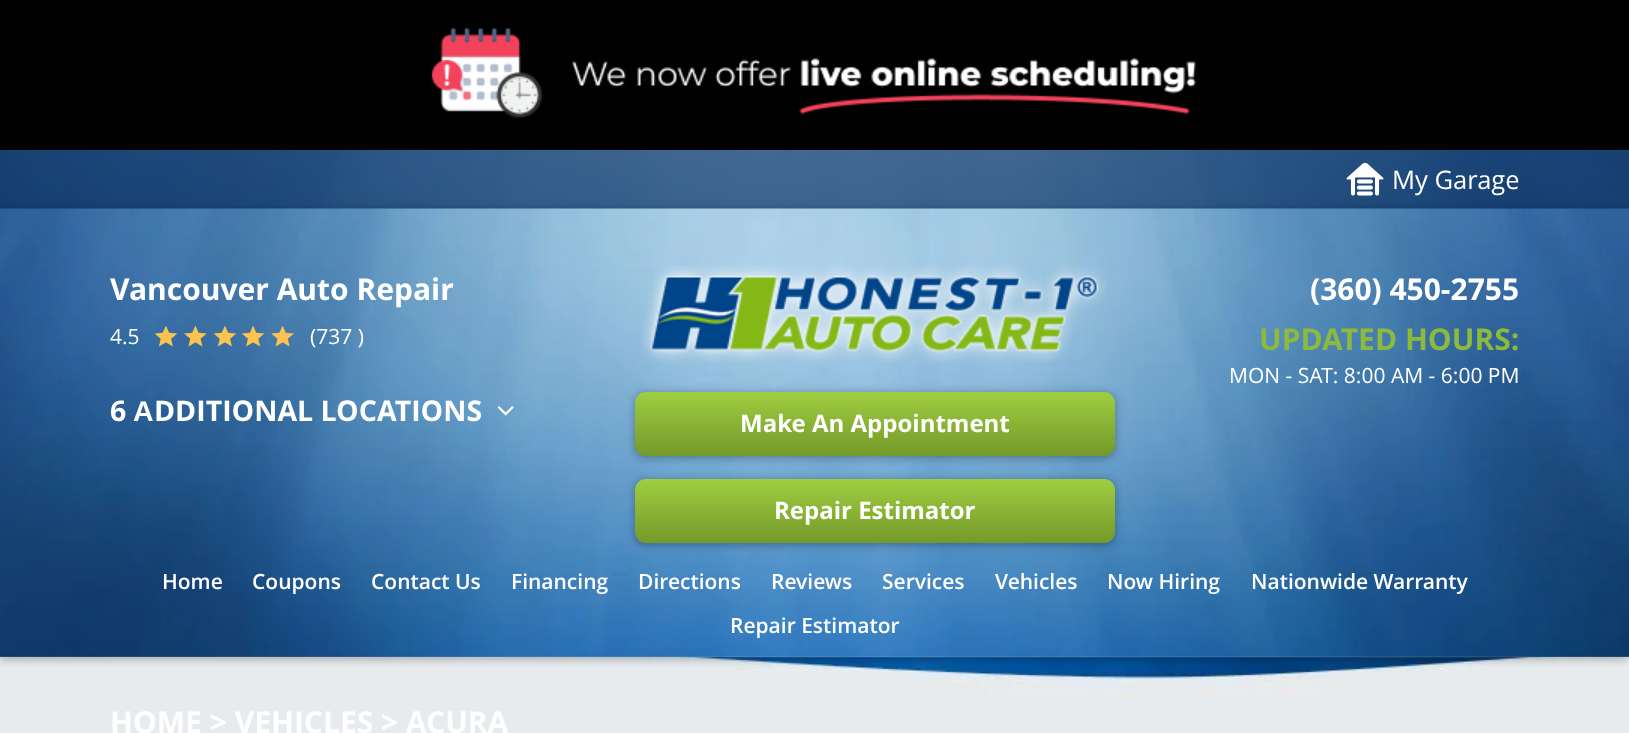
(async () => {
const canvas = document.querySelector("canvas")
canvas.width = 1629
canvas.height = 733
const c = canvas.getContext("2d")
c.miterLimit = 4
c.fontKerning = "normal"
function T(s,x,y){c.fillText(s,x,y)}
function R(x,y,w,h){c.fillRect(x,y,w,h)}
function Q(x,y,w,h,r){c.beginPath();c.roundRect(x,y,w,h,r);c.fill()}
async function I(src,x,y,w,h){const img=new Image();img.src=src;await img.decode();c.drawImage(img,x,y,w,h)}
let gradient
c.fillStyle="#e8ebed"
R(0,0,1629,733)
await I("1.png",0,150,1629,546)
c.fillStyle="#010101"
R(0,0,1629,150)
await I("2.png",431,28,765,91)
c.fillStyle="#113565a6"
R(0,150,1629,59)
await I("3.png",1346,162,38,34)
c.font="25.5px Open Sans"
c.fillStyle="#fff"
T("My Garage",1392,189)
c.fillStyle="#0000004d"
c.filter="blur(4px)"
c.beginPath()
c.rect(0,210,1629,449)
c.fill()
c.filter="none"
await I("4.png",0,208,1629,449)
c.fillStyle="#ffffff14"
R(0,656,1629,2)
c.font="bold 30px Open Sans"
c.fillStyle="#fff"
T("Vancouver Auto Repair",110,300)
await I("5.png",155,326,139,21)
c.font="21px Open Sans"
T("4.5",110,344)
T("(737 )",310,344)
c.font="bold 28.5px Open Sans"
T("6",110,421)
c.font="bold 28.5px Liberation Sans"
T("А",133,421)
c.font="bold 28.5px Open Sans"
T("DDITIONAL LOCATIONS",154,421)
await I("6.png",497,406,17,10)
c.font="bold 30px Open Sans"
T("(360) 450-2755",1310,300)
c.fillStyle="#8db93d"
T("UPDATED HOURS:",1259,350)
c.font="21px Open Sans"
c.fillStyle="#fff"
T("MON - SAT: 8:00 AM - 6:00 PM",1229,383)
await I("7.png",641,265,466,98)
c.fillStyle="#0000004d"
c.filter="blur(4px)"
c.beginPath()
c.roundRect(635,393,480,65,11)
c.fill()
c.filter="none"
gradient = c.createLinearGradient(875,392,875,456)
gradient.addColorStop(0,"#9fce41")
gradient.addColorStop(1,"#749929")
c.fillStyle = gradient
Q(635,392,480,64,11)
c.font="bold 24px Open Sans"
c.fillStyle="#fff"
T("Make An Appointment",740,432)
c.fillStyle="#0000004d"
c.filter="blur(4px)"
c.beginPath()
c.roundRect(635,480,480,65,11)
c.fill()
c.filter="none"
gradient = c.createLinearGradient(875,479,875,543)
gradient.addColorStop(0,"#9fce41")
gradient.addColorStop(1,"#749929")
c.fillStyle = gradient
Q(635,479,480,64,11)
c.fillStyle="#fff"
T("Repair Estimator",774,519)
c.font="600 21px Open Sans"
T("Home",162,589)
T("Coupons",252,589)
T("Contact Us",371,589)
T("Financing",511,589)
T("Directions",638,589)
T("Reviews",771,589)
T("Services",882,589)
T("Vehicles",995,589)
T("Now Hiring",1107,589)
T("Nationwide Warranty",1251,589)
T("Repair Estimator",730,633)
c.font="bold 30px Open Sans"
T("HOME > VEHICLES > ACURA",110,733)
})()
